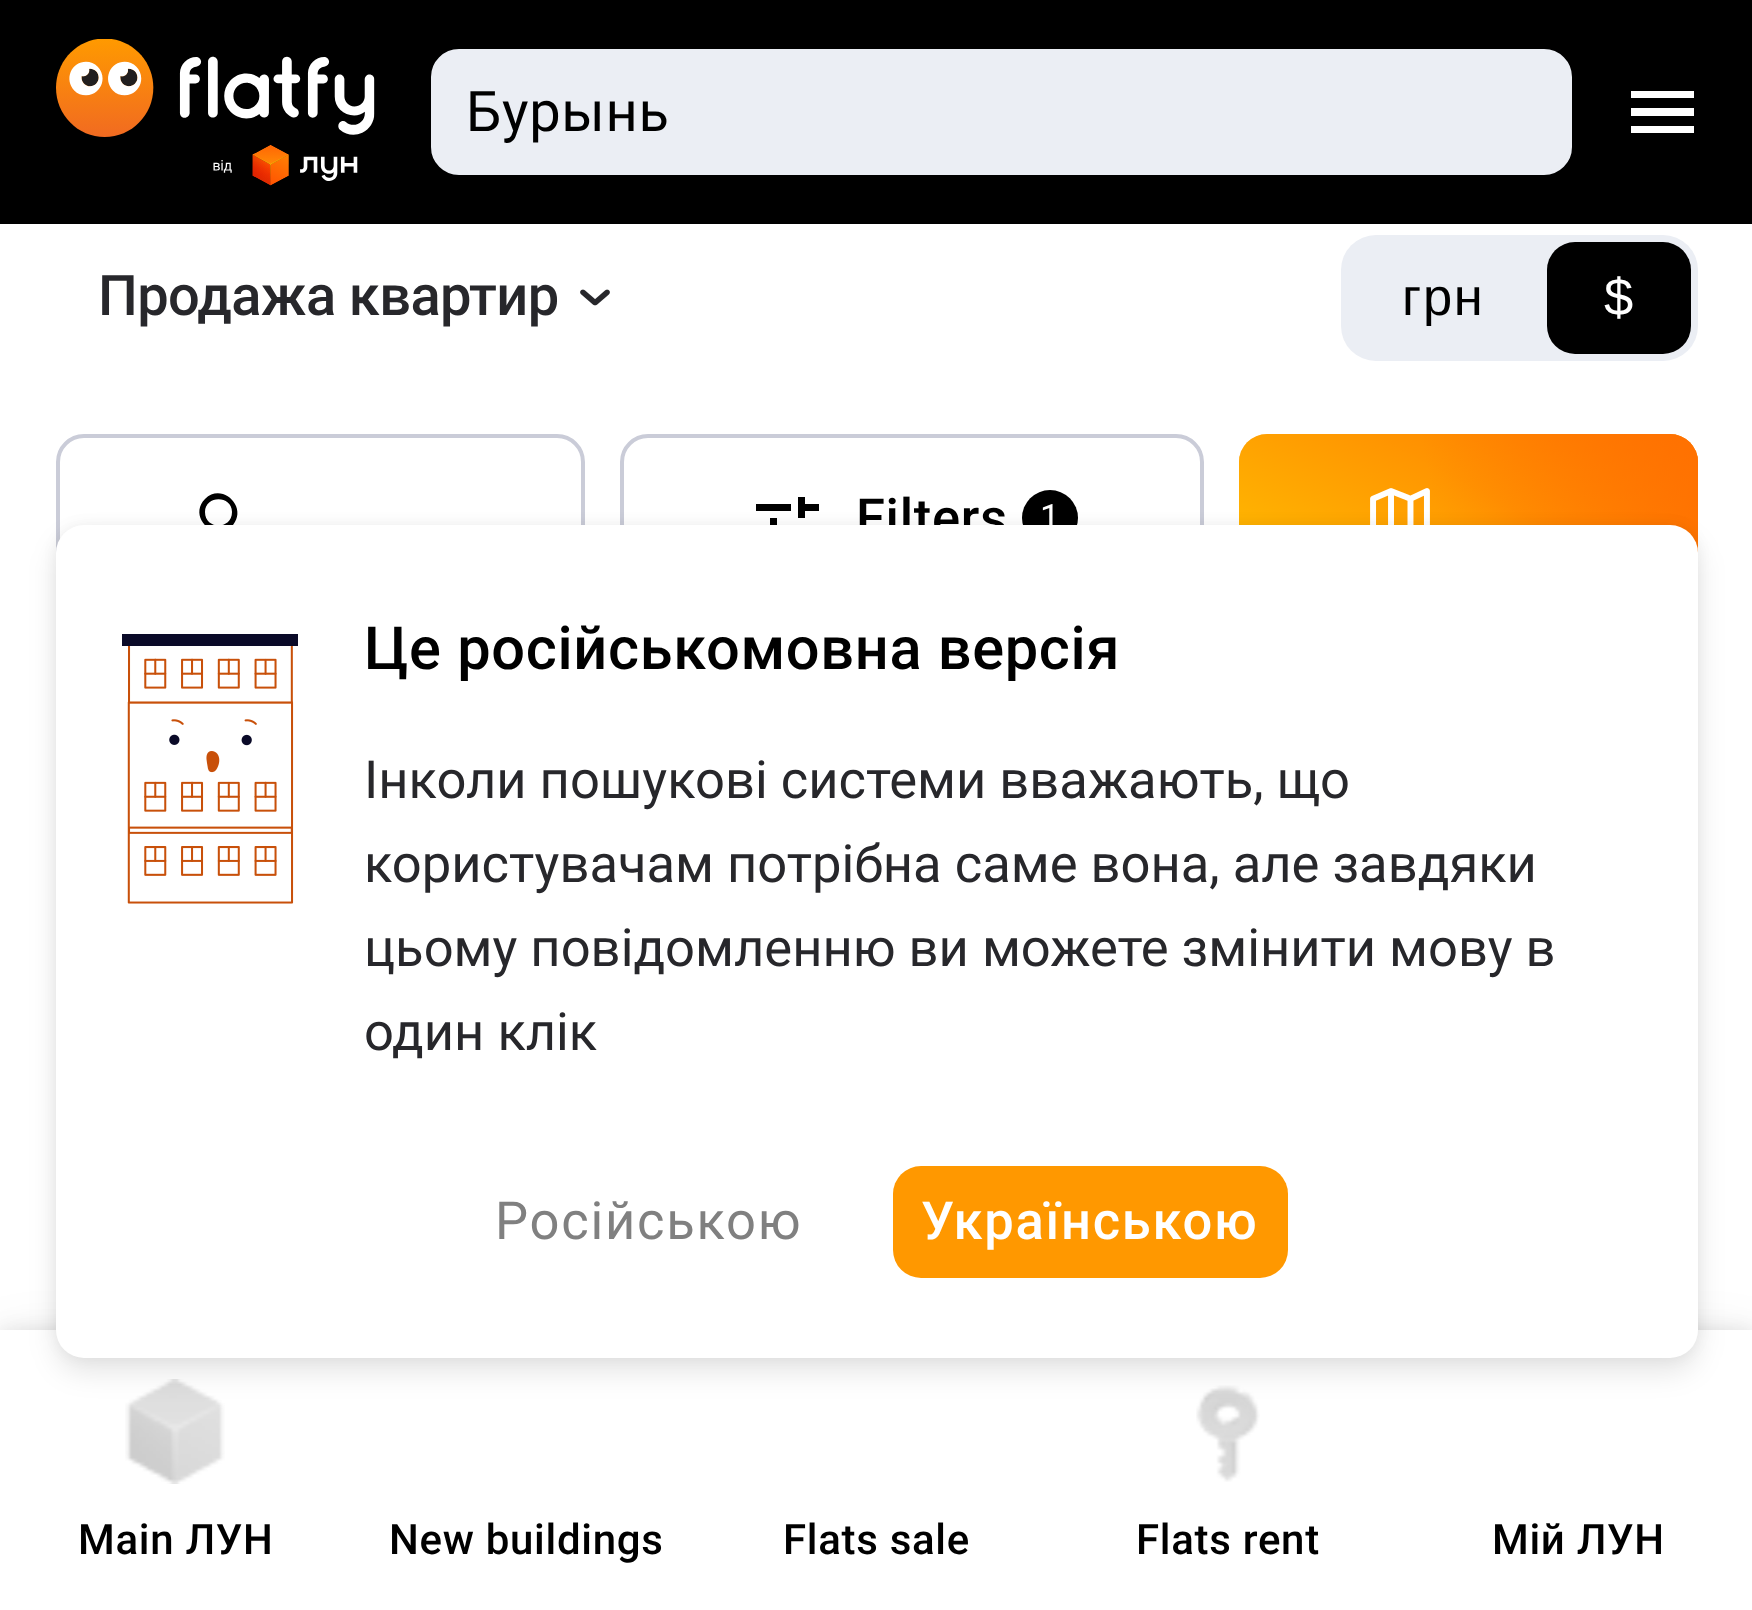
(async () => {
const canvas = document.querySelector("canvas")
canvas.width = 1752
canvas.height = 1610
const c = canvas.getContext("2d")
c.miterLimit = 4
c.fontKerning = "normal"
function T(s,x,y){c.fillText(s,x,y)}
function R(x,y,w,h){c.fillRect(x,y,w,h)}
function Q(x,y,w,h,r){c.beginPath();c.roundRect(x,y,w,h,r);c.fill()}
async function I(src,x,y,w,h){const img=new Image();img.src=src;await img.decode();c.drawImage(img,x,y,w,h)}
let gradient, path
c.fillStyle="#fff"
R(0,0,1752,1610)
c.fillStyle="#000"
R(0,0,1752,224)
await I("1.png",56,39,319,147)
c.fillStyle="#ebeef4"
c.beginPath()
c.roundRect(433,51,1137,122,26)
c.fill()
c.strokeStyle="#ebeef4"
c.lineWidth=4
c.stroke()
c.letterSpacing="0.7px"
c.font="56px Roboto"
c.fillStyle="#000"
T("Бурынь",466,131)
c.fillStyle="#fff"
path = new Path2D("M1631 133h63v-7h-63zm0-17h63v-8h-63zm0-25v7h63v-7z")
c.fill(path)
c.letterSpacing="-0.6px"
c.font="500 56px Roboto"
c.fillStyle="#27272b"
T("Продажа квартир",98,315)
await I("2.png",580,289,30,17)
c.fillStyle="#ebeef4"
Q(1341,235,357,126,35)
c.letterSpacing="1.75px"
c.font="52.5px Liberation Sans"
c.fillStyle="#000"
T("грн",1402,315)
Q(1547,242,144,112,28)
c.fillStyle="#fff"
T("$",1604,315)
c.beginPath()
c.roundRect(58,436,525,164,26)
c.strokeStyle="#caccd8"
c.stroke()
c.fillStyle="#000"
path = new Path2D("M234 526h2l15 14l-5 5l-14-15v-2l-1-1c-18 15-43-11-26-28c17-17 43 8 28 26zm-29-14c0 18 27 18 27 0c0-17-27-17-27 0z")
c.fill(path,"evenodd")
c.beginPath()
c.roundRect(622,436,580,164,26)
c.stroke()
path = new Path2D("M798 518h7v-7h14v-7h-14v-7h-7zm-28 7v-7h7v21h-7v-7h-14v-7zm49 0v7h-35v-7zm-28-21h-35v7h35z")
c.fill(path,"evenodd")
c.letterSpacing="0.7px"
c.font="500 52.5px Roboto"
T("Filters",856,536)
c.beginPath()
c.arc(1050,518,28,0,7)
c.fill()
c.font="35px Roboto"
c.fillStyle="#fff"
T("1",1040,529)
c.fillStyle="#ff9501"
Q(1239,434,459,168,28)
gradient = c.createLinearGradient(1502,385,1435,651)
gradient.addColorStop(.69,"#ffb40100")
gradient.addColorStop(.92,"#ffb401")
c.fillStyle = gradient
R(1239,518,23,7)
gradient = c.createLinearGradient(1735,464,1232,566)
gradient.addColorStop(0,"#ff7001")
gradient.addColorStop(.59,"#ff700100")
c.fillStyle = gradient
Q(1239,434,459,168,28)
gradient = c.createLinearGradient(1555,357,1382,679)
gradient.addColorStop(.42,"#ffb30100")
gradient.addColorStop(.81,"#ffb301")
c.fillStyle = gradient
Q(1239,434,459,168,28)
gradient = c.createLinearGradient(1570,321,1386,678)
gradient.addColorStop(0,"#ff7001")
gradient.addColorStop(.48,"#ff700100")
c.fillStyle = gradient
Q(1239,434,459,168,28)
await I("3.png",1370,488,60,37)
c.fillStyle="#0000001a"
c.filter="blur(10.5px)"
c.beginPath()
c.rect(0,1330,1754,280)
c.fill()
c.filter="none"
c.filter="blur(28px)"
c.beginPath()
c.rect(0,1344,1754,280)
c.fill()
c.filter="none"
c.fillStyle="#fff"
R(0,1330,1752,280)
await I("5.png",125,1379,100,105)
await I("6.png",1196,1385,64,97)
c.fillStyle="#0000001a"
c.filter="blur(14px)"
c.beginPath()
c.roundRect(56,539,1642,833,28)
c.fill()
c.filter="none"
c.fillStyle="#0000000d"
c.filter="blur(7px)"
c.beginPath()
c.roundRect(56,525,1642,833,28)
c.fill()
c.filter="none"
c.fillStyle="#fff"
Q(56,525,1642,833,28)
await I("4.png",122,634,176,270)
c.font="500 59.5px Roboto"
c.fillStyle="#000"
T("Це російськомовна версія",364,669)
c.letterSpacing="0px"
c.font="52.5px Roboto"
c.fillStyle="#27272b"
T("Інколи пошукові системи вважають, що",364,798)
T("користувачам потрібна саме вона, але завдяки",364,882)
T("цьому повідомленню ви можете змінити мову в",364,966)
T("один клік",364,1050)
c.letterSpacing="1.75px"
c.fillStyle="#808080"
T("Російською",495,1239)
c.fillStyle="#ff9800"
Q(893,1166,395,112,28)
c.font="500 52.5px Roboto"
c.fillStyle="#fff"
T("Українською",921,1239)
c.letterSpacing="0.7px"
c.font="500 42px Roboto"
c.fillStyle="#000"
T("Main ЛУН",78,1554)
T("New buildings",389,1554)
T("Flats sale",783,1554)
T("Flats rent",1136,1554)
T("Мій ЛУН",1492,1554)
})()
